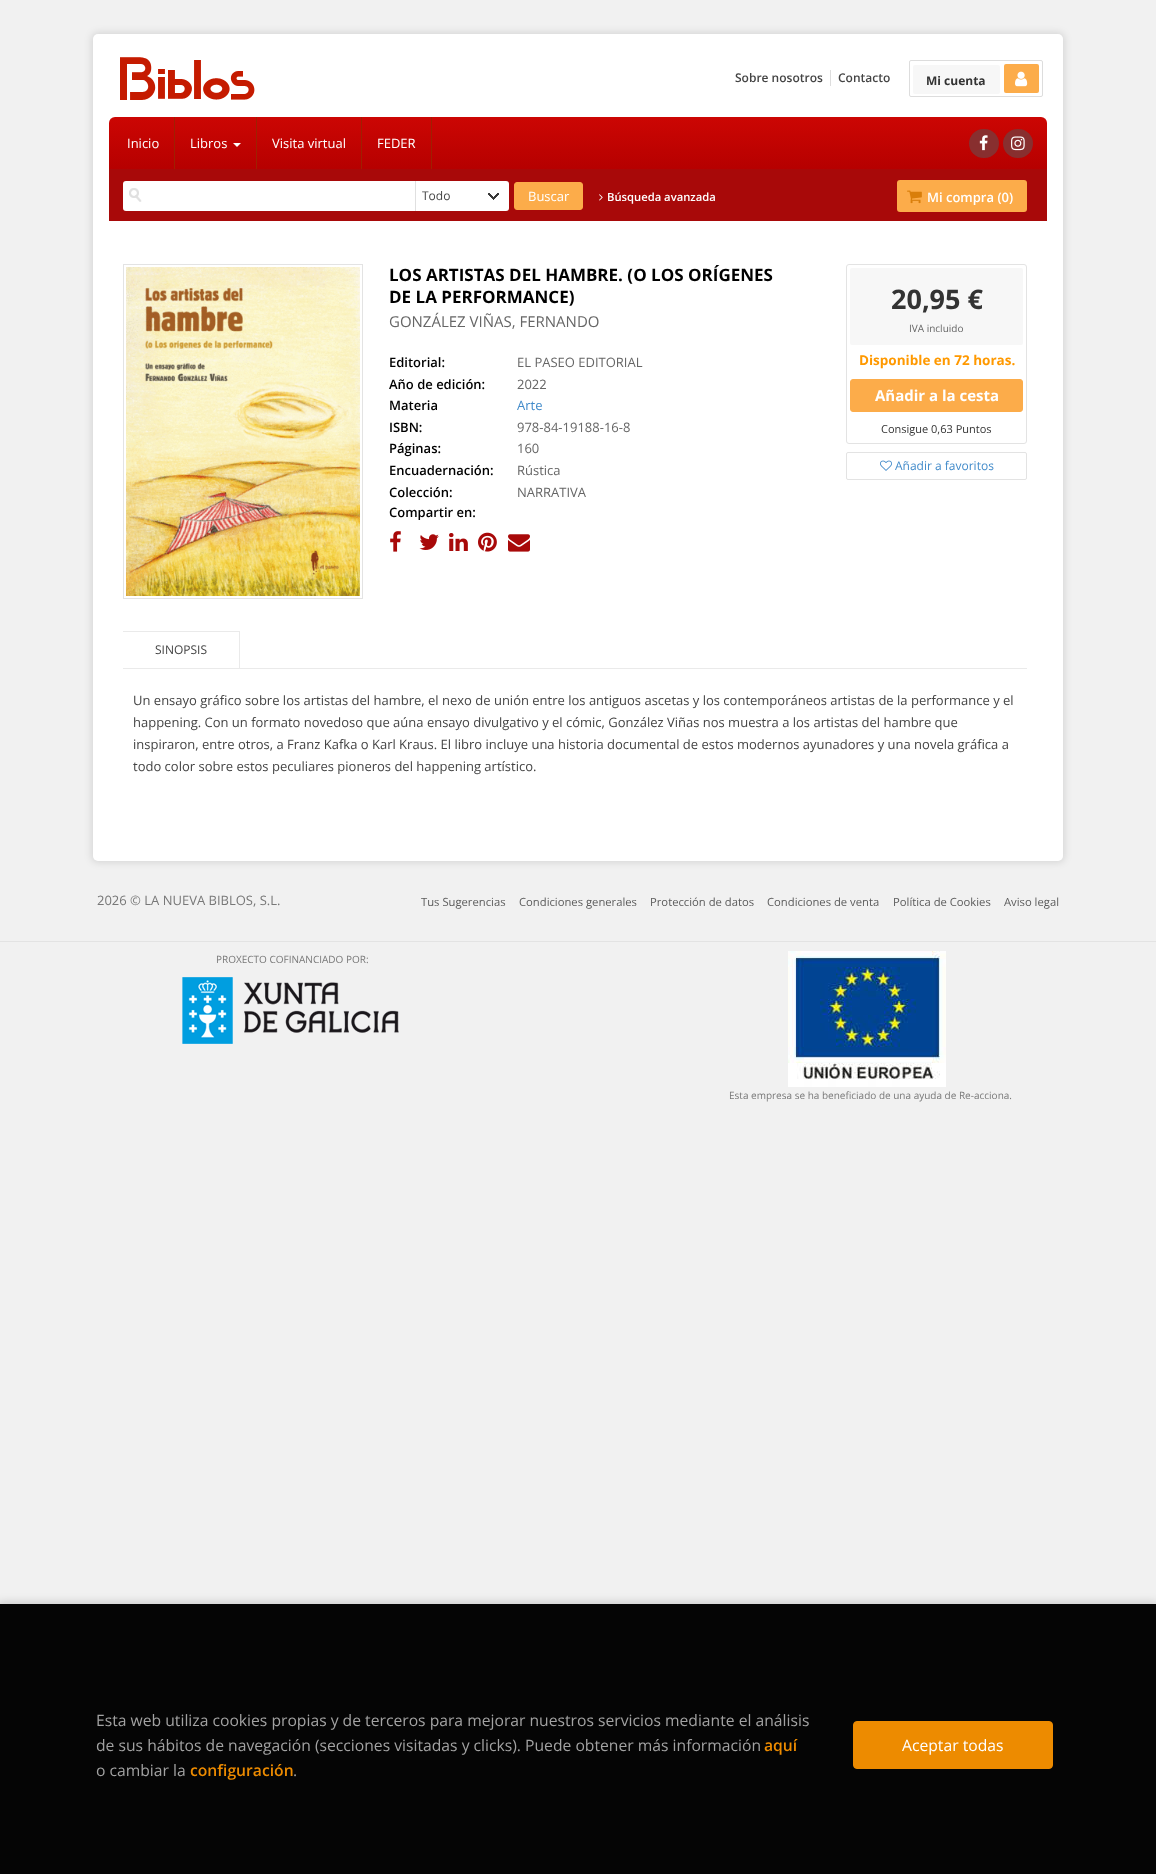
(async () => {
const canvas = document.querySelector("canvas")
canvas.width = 1156
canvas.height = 1874
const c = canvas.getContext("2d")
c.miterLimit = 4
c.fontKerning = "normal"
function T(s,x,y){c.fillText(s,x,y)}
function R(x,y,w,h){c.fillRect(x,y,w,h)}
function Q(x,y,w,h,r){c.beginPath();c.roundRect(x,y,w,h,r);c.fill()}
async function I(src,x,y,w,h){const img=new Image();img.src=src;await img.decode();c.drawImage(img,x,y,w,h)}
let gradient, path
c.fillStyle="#f1f1f1"
R(0,0,1156,1874)
c.fillStyle="#0000001a"
c.filter="blur(3.5px)"
c.beginPath()
c.roundRect(91,32,974,831,7)
c.fill()
c.filter="none"
c.fillStyle="#fff"
Q(93,34,970,827,5)
await I("1.png",120,57,135,43)
c.fillStyle="#ddd"
R(830,70,1,16)
c.font="600 12px Open Sans"
c.fillStyle="#444"
T("Sobre nosotros",735,82)
T("Contacto",838,82)
c.beginPath()
c.roundRect(909.5,60.5,133,36,1.5)
c.strokeStyle="#ddd"
c.stroke()
c.fillStyle="#f7f7f7"
Q(913,65,87,29,2)
c.font="bold 12px Open Sans"
c.fillStyle="#333"
T("Mi cuenta",926,85)
c.fillStyle="#fcac4a"
Q(1004,64,35,29,2)
await I("2.png",1015,71,13,16)
gradient = c.createLinearGradient(578,117,578,169)
gradient.addColorStop(0,"#cc0603")
gradient.addColorStop(1,"#b60000")
c.fillStyle = gradient
c.beginPath()
c.roundRect(109,117,938,52,[6,6,0,0])
c.fill()
c.fillStyle="#9f2001"
R(174,117,1,52)
c.font="13px Open Sans"
c.fillStyle="#fff"
T("Inicio",127,148)
c.fillStyle="#9f2001"
R(256,117,1,52)
c.fillStyle="#fff"
T("Libros",190,148)
path = new Path2D("M233 143h8l-4 4z")
c.fill(path)
c.fillStyle="#9f2001"
R(361,117,1,52)
c.fillStyle="#fff"
T("Visita virtual",272,148)
c.fillStyle="#9f2001"
R(431,117,1,52)
c.fillStyle="#fff"
T("FEDER",377,148)
c.fillStyle="#882f2f"
Q(969,129,30,29,14.5)
await I("3.png",979,135,9,16)
Q(1003,129,30,29,14.5)
await I("4.png",1011,136,14,15)
c.fillStyle="#a80909"
R(109,169,938,52)
c.fillStyle="#fff"
c.beginPath()
c.roundRect(123,181,292,30,[3,0,0,3])
c.fill()
await I("5.png",129,188,13,14)
c.beginPath()
c.roundRect(415,181,94,30,[0,3,3,0])
c.fill()
await I("6.png",488,193,11,7)
c.fillStyle="#e0e0e0"
R(415,181,1,30)
c.font="12px Open Sans"
c.fillStyle="#444"
T("Todo",422,200)
c.fillStyle="#fcac4a"
c.beginPath()
c.roundRect(514.5,182.5,68,27,2.5)
c.fill()
c.strokeStyle="#fcac4a"
c.stroke()
c.font="13px Open Sans"
c.fillStyle="#fff"
T("Buscar",528,201)
await I("7.png",599,194,4,7)
c.font="600 11.25px Open Sans"
T("Búsqueda avanzada",607,201)
c.fillStyle="#fcac4a"
Q(897,180,130,32,3)
await I("8.png",907,190,15,14)
c.font="600 13px Open Sans"
c.fillStyle="#fff"
T("Mi compra (0)",927,202)
c.strokeStyle="#e3e3e3"
c.strokeRect(123.5,264.5,239,334)
await I("9.png",126,267,234,329)
c.font="bold 17px Open Sans"
c.fillStyle="#000"
T("LOS ARTISTAS DEL HAMBRE. (O LOS ORÍGENES",389,281)
T("DE LA PERFORMANCE)",389,303)
c.font="15px Open Sans"
c.fillStyle="#666"
T("GONZÁLEZ VIÑAS, FERNANDO",389,327)
c.font="600 13px Open Sans"
c.fillStyle="#000"
T("Editorial:",389,367)
c.font="13px Open Sans"
c.fillStyle="#666"
T("EL PASEO EDITORIAL",517,367)
c.font="600 13px Open Sans"
c.fillStyle="#000"
T("Año de edición:",389,389)
c.font="13px Open Sans"
c.fillStyle="#666"
T("2022",517,389)
c.font="600 13px Open Sans"
c.fillStyle="#000"
T("Materia",389,410)
c.font="13px Open Sans"
c.fillStyle="#428bca"
T("Arte",517,410)
c.font="600 13px Open Sans"
c.fillStyle="#000"
T("ISBN:",389,432)
c.font="13px Open Sans"
c.fillStyle="#666"
T("978-84-19188-16-8",517,432)
c.font="600 13px Open Sans"
c.fillStyle="#000"
T("Páginas:",389,453)
c.font="13px Open Sans"
c.fillStyle="#666"
T("160",517,453)
c.font="600 13px Open Sans"
c.fillStyle="#000"
T("Encuadernación:",389,475)
c.font="13px Open Sans"
c.fillStyle="#666"
T("Rústica",517,475)
c.font="600 13px Open Sans"
c.fillStyle="#000"
T("Colección:",389,497)
c.font="13px Open Sans"
c.fillStyle="#666"
T("NARRATIVA",517,497)
c.font="600 13px Open Sans"
c.fillStyle="#000"
T("Compartir en:",389,517)
await I("10.png",390,531,11,21)
await I("11.png",419,534,20,16)
await I("12.png",449,533,19,18)
await I("13.png",478,532,19,20)
await I("14.png",508,534,22,18)
c.beginPath()
c.roundRect(846.5,264.5,180,179,2.5)
c.stroke()
c.fillStyle="#f7f7f7"
Q(850,268,173,77,2)
c.font="bold 27px Open Sans"
c.fillStyle="#333"
T("20,95 €",891,309)
c.font="10px Open Sans"
c.fillStyle="#666"
T("IVA incluido",909,332)
c.font="bold 13.5px Open Sans"
c.fillStyle="#f90"
T("Disponible en 72 horas.",859,365)
c.fillStyle="#fcac4a"
c.beginPath()
c.roundRect(850.5,379.5,172,32,2.5)
c.fill()
c.strokeStyle="#fcac4a"
c.stroke()
c.font="bold 15px Open Sans"
c.fillStyle="#fff"
T("Añadir a la cesta",875,401)
c.font="11px Open Sans"
c.fillStyle="#333"
T("Consigue 0,63 Puntos",881,433)
c.beginPath()
c.roundRect(846.5,452.5,180,27,1.5)
c.strokeStyle="#e3e3e3"
c.stroke()
await I("15.png",880,460,12,11)
c.font="12px Open Sans"
c.fillStyle="#428bca"
T("Añadir a favoritos",895,470)
c.fillStyle="#eaeaea"
R(123,668,904,1)
R(123,631,117,1)
R(239,631,1,37)
c.fillStyle="#444"
T("SINOPSIS",155,654)
c.font="13px Open Sans"
T("Un ensayo gráfico sobre los artistas del hambre, el nexo de unión entre los antiguos ascetas y los contemporáneos artistas de la performance y el",133,705)
T("happening. Con un formato novedoso que aúna ensayo divulgativo y el cómic, González Viñas nos muestra a los artistas del hambre que",133,727)
T("inspiraron, entre otros, a Franz Kafka o Karl Kraus. El libro incluye una historia documental de estos modernos ayunadores y una novela gráfica a",133,749)
T("todo color sobre estos peculiares pioneros del happening artístico.",133,771)
c.fillStyle="#787878"
T("2026 © LA NUEVA BIBLOS, S.L.",97,905)
c.font="11.25px Open Sans"
c.fillStyle="#5c5c5c"
T("Tus Sugerencias",421,906)
T("Condiciones generales",519,906)
T("Protección de datos",650,906)
T("Condiciones de venta",767,906)
T("Política de Cookies",893,906)
T("Aviso legal",1004,906)
c.fillStyle="#e3e3e3"
R(0,941,1156,1)
c.font="10px Open Sans"
c.fillStyle="#787878"
T("PROXECTO COFINANCIADO POR:",216,963)
await I("16.png",182,977,217,67)
await I("17.png",788,951,158,136)
T("Esta empresa se ha beneficiado de una ayuda de Re-acciona.",729,1099)
c.fillStyle="#00000026"
c.filter="blur(4px)"
c.beginPath()
c.rect(-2,1602,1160,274)
c.fill()
c.filter="none"
c.fillStyle="#050505"
R(0,1604,1156,270)
c.font="15.7px Open Sans"
c.fillStyle="#a2a2a2"
T("Esta web utiliza cookies propias y de terceros para mejorar nuestros servicios mediante el análisis",96,1726)
T("de sus hábitos de navegación (secciones visitadas y clicks). Puede obtener más información",96,1751)
c.font="600 15.7px Open Sans"
c.fillStyle="#ed8b00"
T("aquí",764,1751)
c.font="15.7px Open Sans"
c.fillStyle="#a2a2a2"
T("o cambiar la",96,1776)
c.font="600 15.7px Open Sans"
c.fillStyle="#ed8b00"
T("configuración",190,1776)
c.font="15.7px Open Sans"
c.fillStyle="#a2a2a2"
T(".",293,1776)
c.fillStyle="#ed8b00"
c.beginPath()
c.roundRect(853.5,1721.5,199,47,3.5)
c.fill()
c.strokeStyle="#ed8b00"
c.stroke()
c.fillStyle="#fff"
T("Aceptar todas",902,1751)
})()
